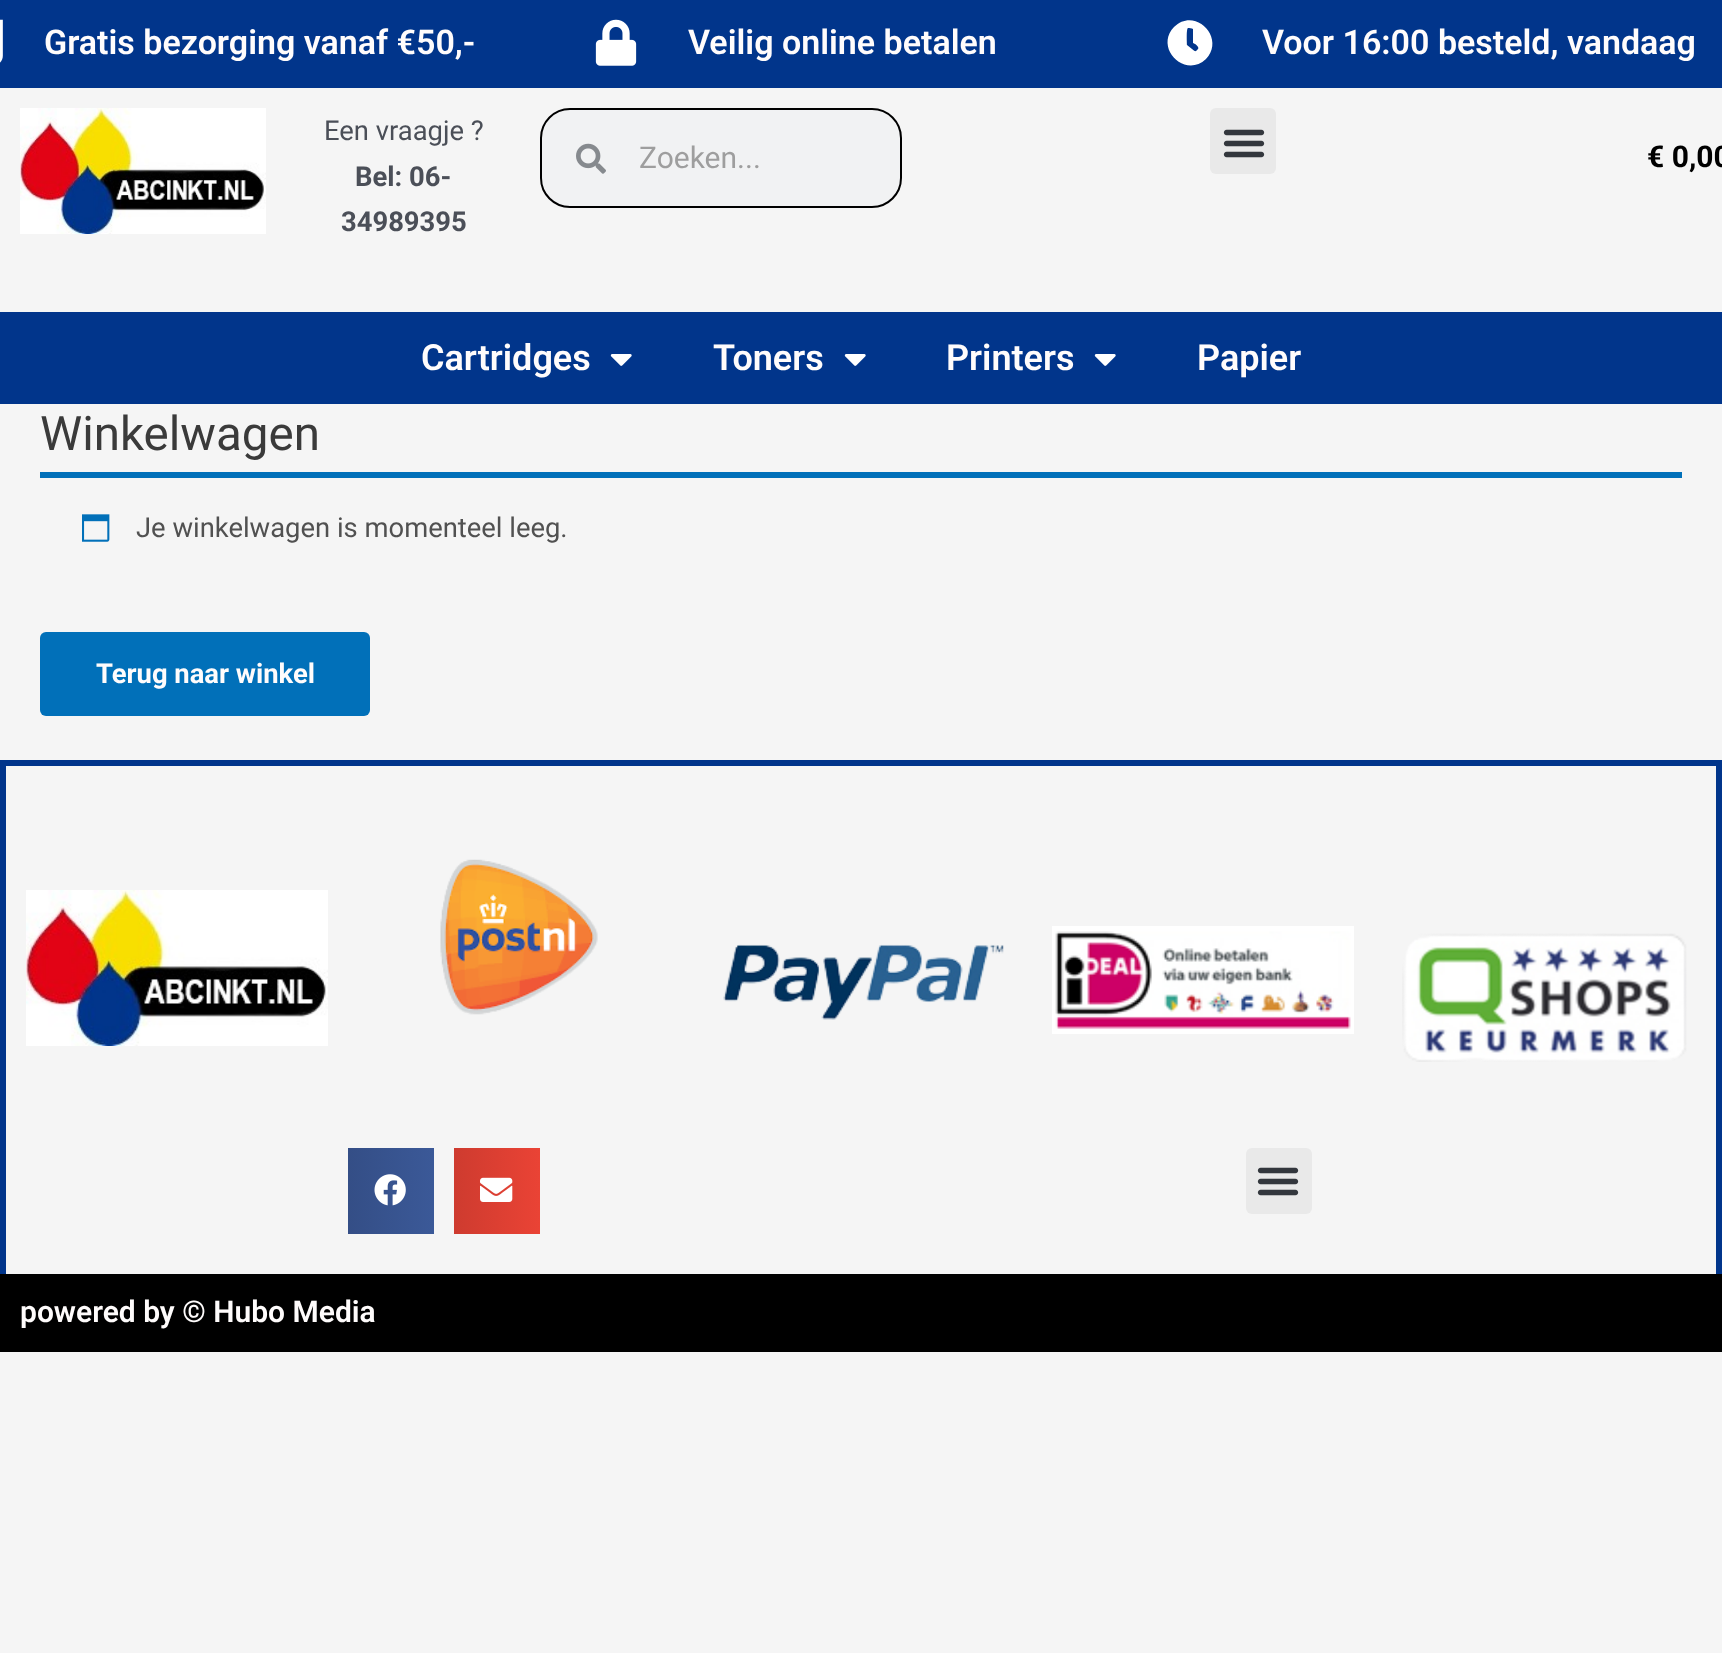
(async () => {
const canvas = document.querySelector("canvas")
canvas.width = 1722
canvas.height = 1653
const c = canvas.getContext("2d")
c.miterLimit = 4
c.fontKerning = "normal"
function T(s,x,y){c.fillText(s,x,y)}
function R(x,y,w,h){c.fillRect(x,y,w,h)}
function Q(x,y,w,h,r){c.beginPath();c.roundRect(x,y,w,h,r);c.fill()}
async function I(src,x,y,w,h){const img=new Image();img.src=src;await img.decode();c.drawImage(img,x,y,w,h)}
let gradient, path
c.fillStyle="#f5f5f5"
R(0,0,1722,1653)
c.fillStyle="#01358b"
R(0,0,1722,88)
await I("1.png",0,19,3,44)
c.font="600 34px Roboto"
c.fillStyle="#fffcfc"
T("Gratis bezorging vanaf €50,-",44,54)
await I("2.png",595,19,42,47)
T("Veilig online betalen",688,54)
c.fillStyle="#fff"
path = new Path2D("M1174 27c21-21 52 11 32 32c-21 20-52-11-32-32zm24 22c2-2-4-6-5-6v-14c-1-1-4-1-5-1c-2 1-1 16-1 17l5 4c4 3 3 3 6 0z")
c.fill(path)
c.fillStyle="#fffcfc"
T("Voor 16:00 besteld, vandaag",1262,54)
await I("3.png",20,108,246,126)
c.font="27.4px Roboto"
c.fillStyle="#4b4f58"
T("Een vraagje ?",324,140)
c.font="bold 27.4px Roboto"
T("Bel: 06-",355,186)
T("34989395",341,231)
c.fillStyle="#f1f2f3"
c.beginPath()
c.roundRect(541,109,360,98,29)
c.fill()
c.strokeStyle="#000"
c.lineWidth=2
c.stroke()
await I("4.png",576,143,30,31)
c.font="30px Roboto"
c.fillStyle="#9e9e9e"
T("Zoeken...",639,168)
c.fillStyle="#e9e9e9"
Q(1210,108,66,66,6)
await I("5.png",1223,129,42,29)
c.font="bold 30px Roboto"
c.fillStyle="#000"
T("€ 0,00",1647,167)
c.fillStyle="#01358b"
R(0,312,1722,92)
c.font="600 36px Roboto"
c.fillStyle="#fffcfc"
T("Cartridges",421,370)
await I("6.png",610,354,22,12)
T("Toners",713,370)
await I("6.png",844,354,22,12)
T("Printers",946,370)
await I("6.png",1094,354,22,12)
T("Papier",1197,370)
c.font="47.5px Roboto"
c.fillStyle="#3a3a3a"
T("Winkelwagen",40,450)
c.fillStyle="#0170b9"
R(40,472,1642,6)
await I("7.png",82,514,28,28)
c.font="27.4px Roboto"
c.fillStyle="#515151"
T("Je winkelwagen is momenteel leeg.",136,537)
c.fillStyle="#0170b9"
Q(40,632,330,84,6)
c.font="bold 27.4px Roboto"
c.fillStyle="#fffcfc"
T("Terug naar winkel",96,683)
c.fillStyle="#01358b"
R(0,760,1722,6)
R(1716,760,6,514)
R(0,760,6,514)
await I("8.png",26,890,302,156)
await I("9.png",440,859,158,156)
await I("10.png",723,944,281,76)
await I("11.png",1052,926,302,108)
await I("12.png",1402,933,285,129)
gradient = c.createLinearGradient(348,1191,434,1191)
gradient.addColorStop(0,"#344e86")
gradient.addColorStop(1,"#3b5998")
c.fillStyle = gradient
R(348,1148,86,86)
await I("13.png",374,1174,32,32)
gradient = c.createLinearGradient(454,1191,540,1191)
gradient.addColorStop(0,"#ce3b2f")
gradient.addColorStop(1,"#ea4335")
c.fillStyle = gradient
R(454,1148,86,86)
await I("14.png",480,1177,33,25)
c.fillStyle="#e9e9e9"
Q(1246,1148,66,66,6)
await I("5.png",1257,1167,42,29)
c.fillStyle="#000"
R(0,1274,1722,78)
c.font="600 30px Roboto"
c.fillStyle="#fffcfc"
T("powered by © Hubo Media",20,1322)
})()
